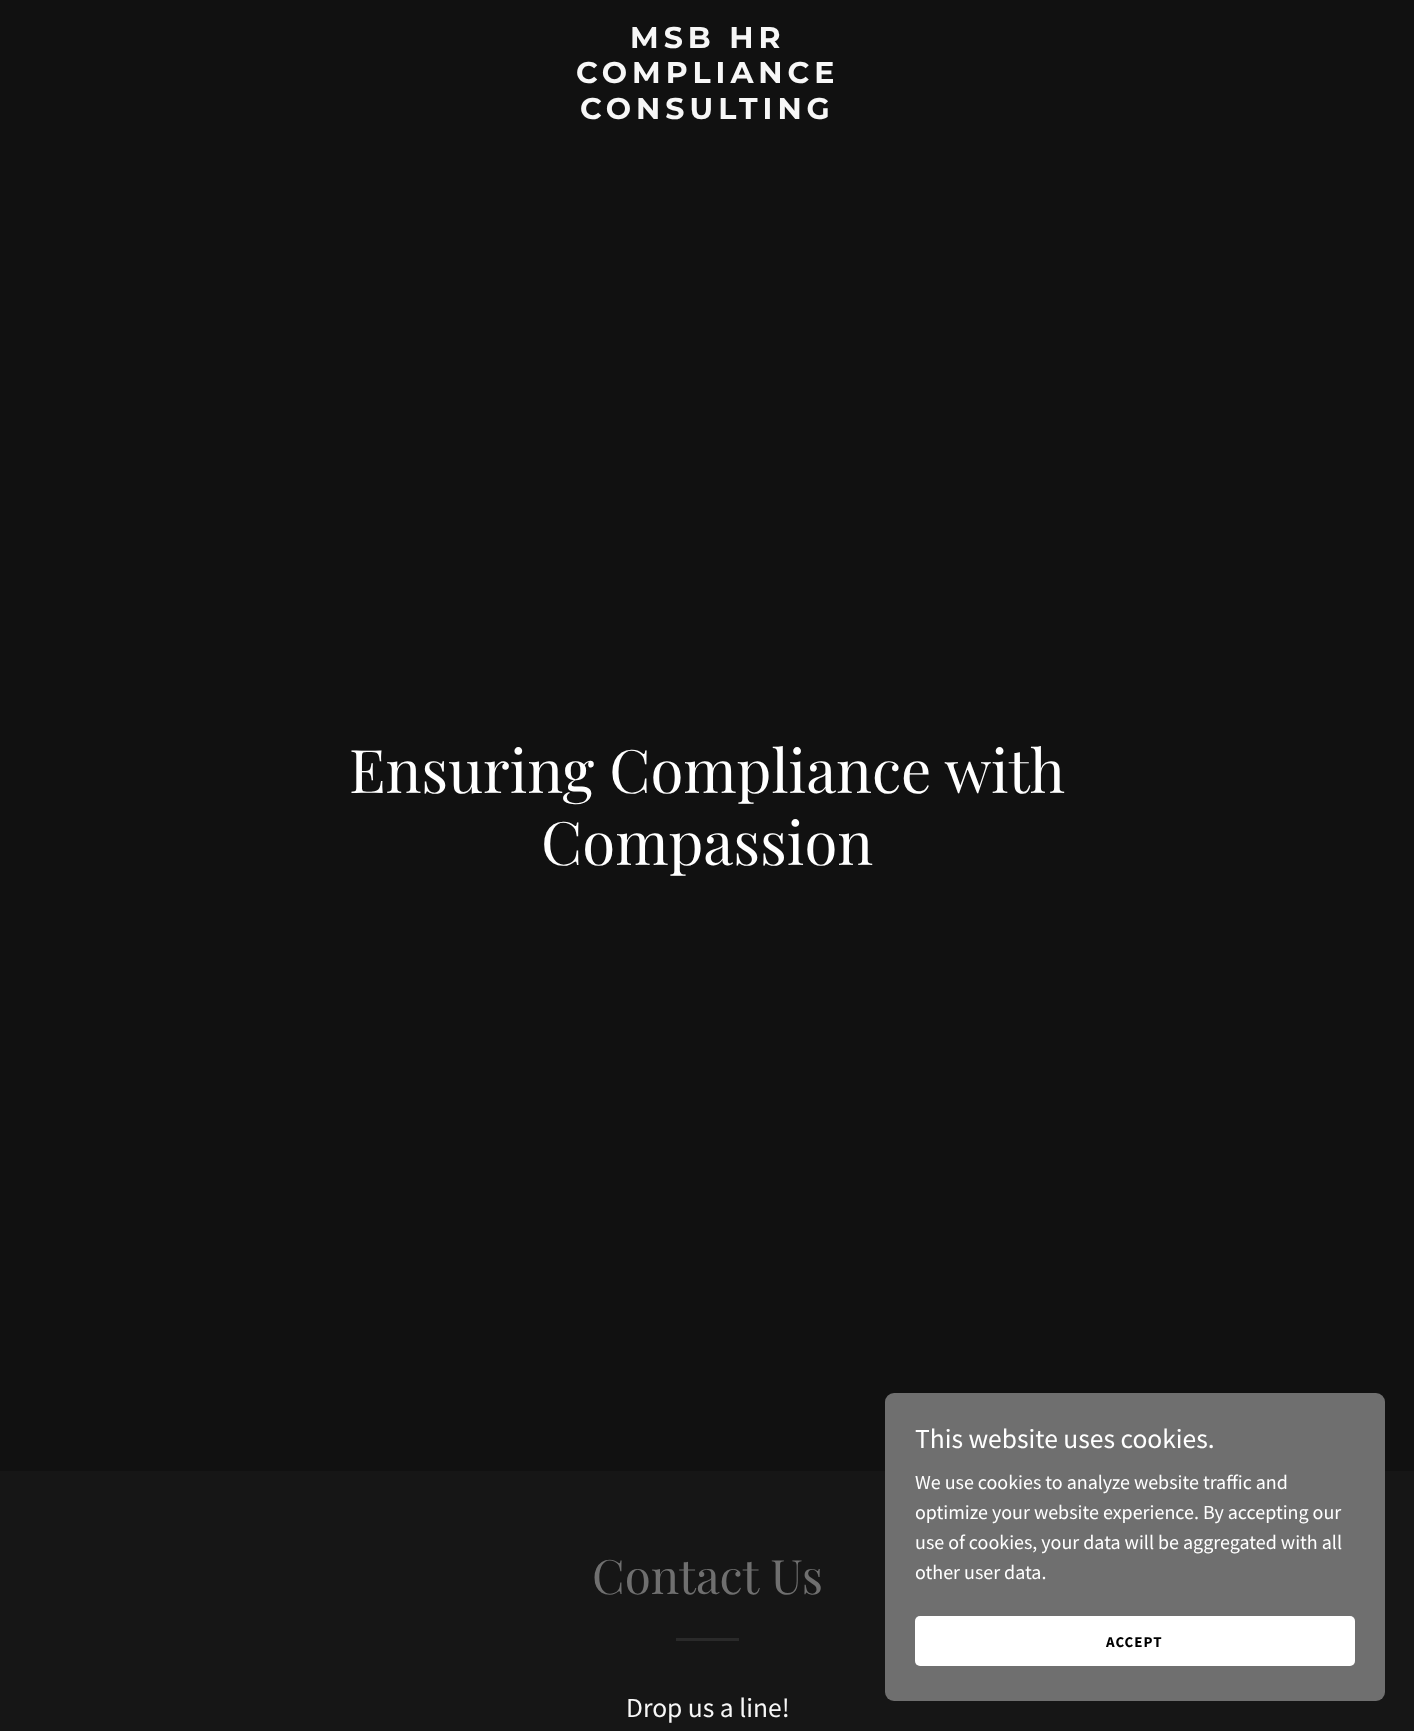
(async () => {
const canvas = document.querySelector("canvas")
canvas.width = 1414
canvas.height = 1731
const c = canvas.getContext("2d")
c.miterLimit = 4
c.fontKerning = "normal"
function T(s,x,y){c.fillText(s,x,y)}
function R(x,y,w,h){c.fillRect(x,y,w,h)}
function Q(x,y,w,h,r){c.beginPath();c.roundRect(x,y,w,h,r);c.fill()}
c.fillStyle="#161616"
R(0,0,1414,1731)
c.fillStyle="#111"
R(0,0,1414,1471)
c.letterSpacing="5px"
c.font="bold 30px Montserrat"
c.fillStyle="#f7f7f7"
T("MSB HR",630,48)
T("COMPLIANCE",576,83)
T("CONSULTING",580,119)
c.letterSpacing="0px"
c.font="60px Playfair Display"
c.fillStyle="#fff"
T("Ensuring Compliance with",349,793)
T("Compassion",541,865)
c.font="47.5px Playfair Display"
c.fillStyle="#6f6f6f"
T("Contact Us",592,1594)
c.fillStyle="#2a2a2a"
R(676,1638,63,3)
c.font="27.5px Source Sans Pro"
c.fillStyle="#f7f7f7"
T("Drop us a line!",626,1717)
c.fillStyle="#6f6f6f"
Q(885,1393,500,308,9)
c.fillStyle="#fff"
T("This website uses cookies.",915,1448)
c.font="20px Source Sans Pro"
T("We use cookies to analyze website traffic and",915,1489)
T("optimize your website experience. By accepting our",915,1519)
T("use of cookies, your data will be aggregated with all",915,1549)
T("other user data.",915,1579)
Q(915,1616,440,50,5)
c.letterSpacing="1px"
c.font="bold 15px Source Sans Pro"
c.fillStyle="#000"
T("ACCEPT",1106,1647)
})()
